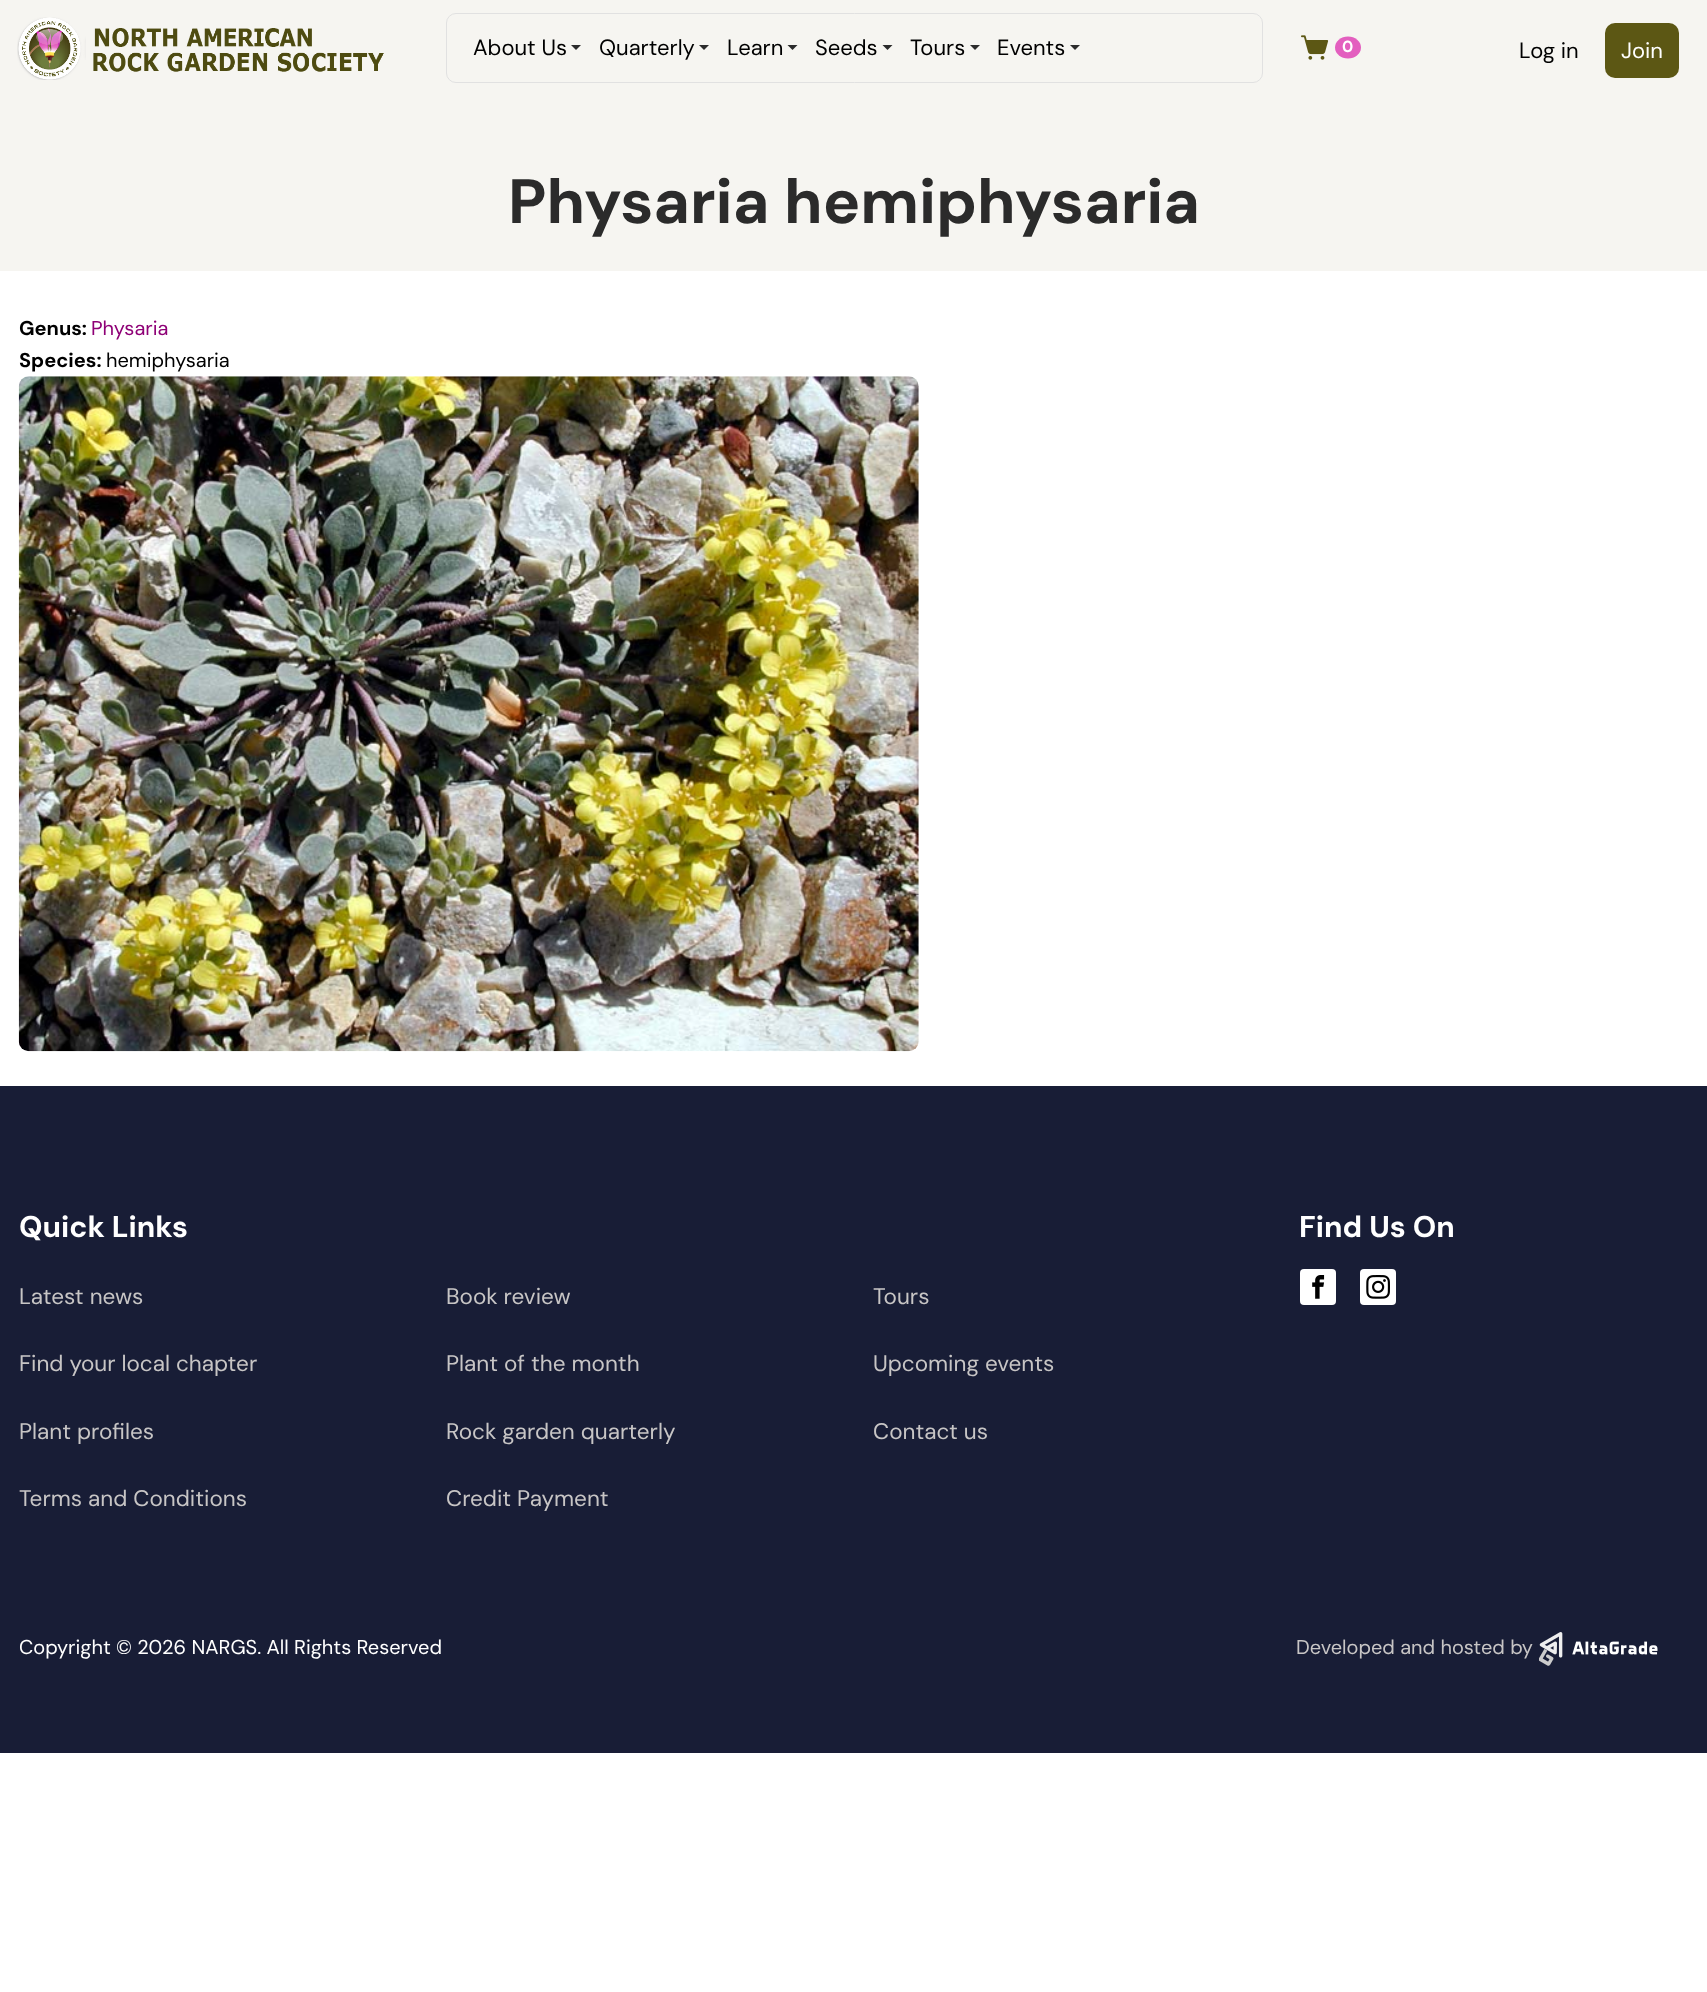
(async () => {
const canvas = document.querySelector("canvas")
canvas.width = 1707
canvas.height = 1992
const c = canvas.getContext("2d")
c.miterLimit = 4
c.fontKerning = "normal"
function T(s,x,y){c.fillText(s,x,y)}
function R(x,y,w,h){c.fillRect(x,y,w,h)}
function Q(x,y,w,h,r){c.beginPath();c.roundRect(x,y,w,h,r);c.fill()}
async function I(src,x,y,w,h){const img=new Image();img.src=src;await img.decode();c.drawImage(img,x,y,w,h)}
let path
c.fillStyle="#fff"
R(0,0,1707,1992)
c.fillStyle="#f6f5f1"
R(0,0,1707,271)
await I("1.png",17,17,367,63)
c.beginPath()
c.roundRect(446.5,13.5,816,69,9.5)
c.strokeStyle="#e1e1e1"
c.stroke()
c.font="22px DM Sans"
c.fillStyle="#000"
T("About Us",473,55)
c.fillStyle="#2b2b2b"
path = new Path2D("M571 45h10l-5 5z")
c.fill(path)
c.fillStyle="#000"
T("Quarterly",599,55)
c.fillStyle="#2b2b2b"
path = new Path2D("M699 45h10l-5 5z")
c.fill(path)
c.fillStyle="#000"
T("Learn",727,55)
c.fillStyle="#2b2b2b"
path = new Path2D("M787.5 45h10l-5 5z")
c.fill(path)
c.fillStyle="#000"
T("Seeds",815,55)
c.fillStyle="#2b2b2b"
path = new Path2D("M882.5 45h10l-5 5z")
c.fill(path)
c.fillStyle="#000"
T("Tours",910,55)
c.fillStyle="#2b2b2b"
path = new Path2D("M970 45h10l-5 5z")
c.fill(path)
c.fillStyle="#000"
T("Events",997,55)
c.fillStyle="#2b2b2b"
path = new Path2D("M1070 45h10l-5 5z")
c.fill(path)
await I("2.png",1301,35,28,25)
c.fillStyle="#e35fbf"
c.beginPath()
c.ellipse(1348,47.5,13,11,0,0,7)
c.fill()
c.font="bold 16px DM Sans"
c.fillStyle="#fff"
T("0",1342,52)
c.font="22px DM Sans"
c.fillStyle="#000"
T("Log in",1519,58)
c.fillStyle="#5c5714"
Q(1605,23,74,55,10)
c.fillStyle="#fff"
T("Join",1621,58)
c.font="bold 62.5px DM Sans"
c.fillStyle="#2b2b2b"
T("Physaria hemiphysaria",508,223)
c.font="bold 20px DM Sans"
c.fillStyle="#000"
T("Genus:",19,335)
c.font="20px DM Sans"
c.fillStyle="#8e0076"
T("Physaria",91,335)
c.font="bold 20px DM Sans"
c.fillStyle="#000"
T("Species:",19,367)
c.font="20px DM Sans"
T("hemiphysaria",106,367)
await I("3.png",18,376,901,676)
c.fillStyle="#181d36"
R(0,1086,1707,667)
c.font="bold 30px DM Sans"
c.fillStyle="#fff"
T("Quick Links",19,1237)
c.font="22.5px DM Sans"
c.fillStyle="#c7c5c5"
T("Latest news",19,1304)
T("Find your local chapter",19,1371)
T("Plant profiles",19,1439)
T("Terms and Conditions",19,1506)
c.font="bold 30px DM Sans"
c.fillStyle="#fff"
T("Find Us On",1299,1237)
Q(1300,1269,36,36,4)
await I("4.png",1312,1275,13,24)
Q(1360,1269,36,36,4)
await I("5.png",1366,1275,24,24)
c.font="22.5px DM Sans"
c.fillStyle="#c7c5c5"
T("Book review",446,1304)
T("Plant of the month",446,1371)
T("Rock garden quarterly",446,1439)
T("Credit Payment",446,1506)
T("Tours",873,1304)
T("Upcoming events",873,1371)
T("Contact us",873,1439)
c.font="20px DM Sans"
c.fillStyle="#fff"
T("Copyright © 2026 NARGS. All Rights Reserved",19,1654)
c.fillStyle="#c7c5c5"
T("Developed and hosted by",1296,1654)
await I("6.png",1539,1632,119,34)
})()
